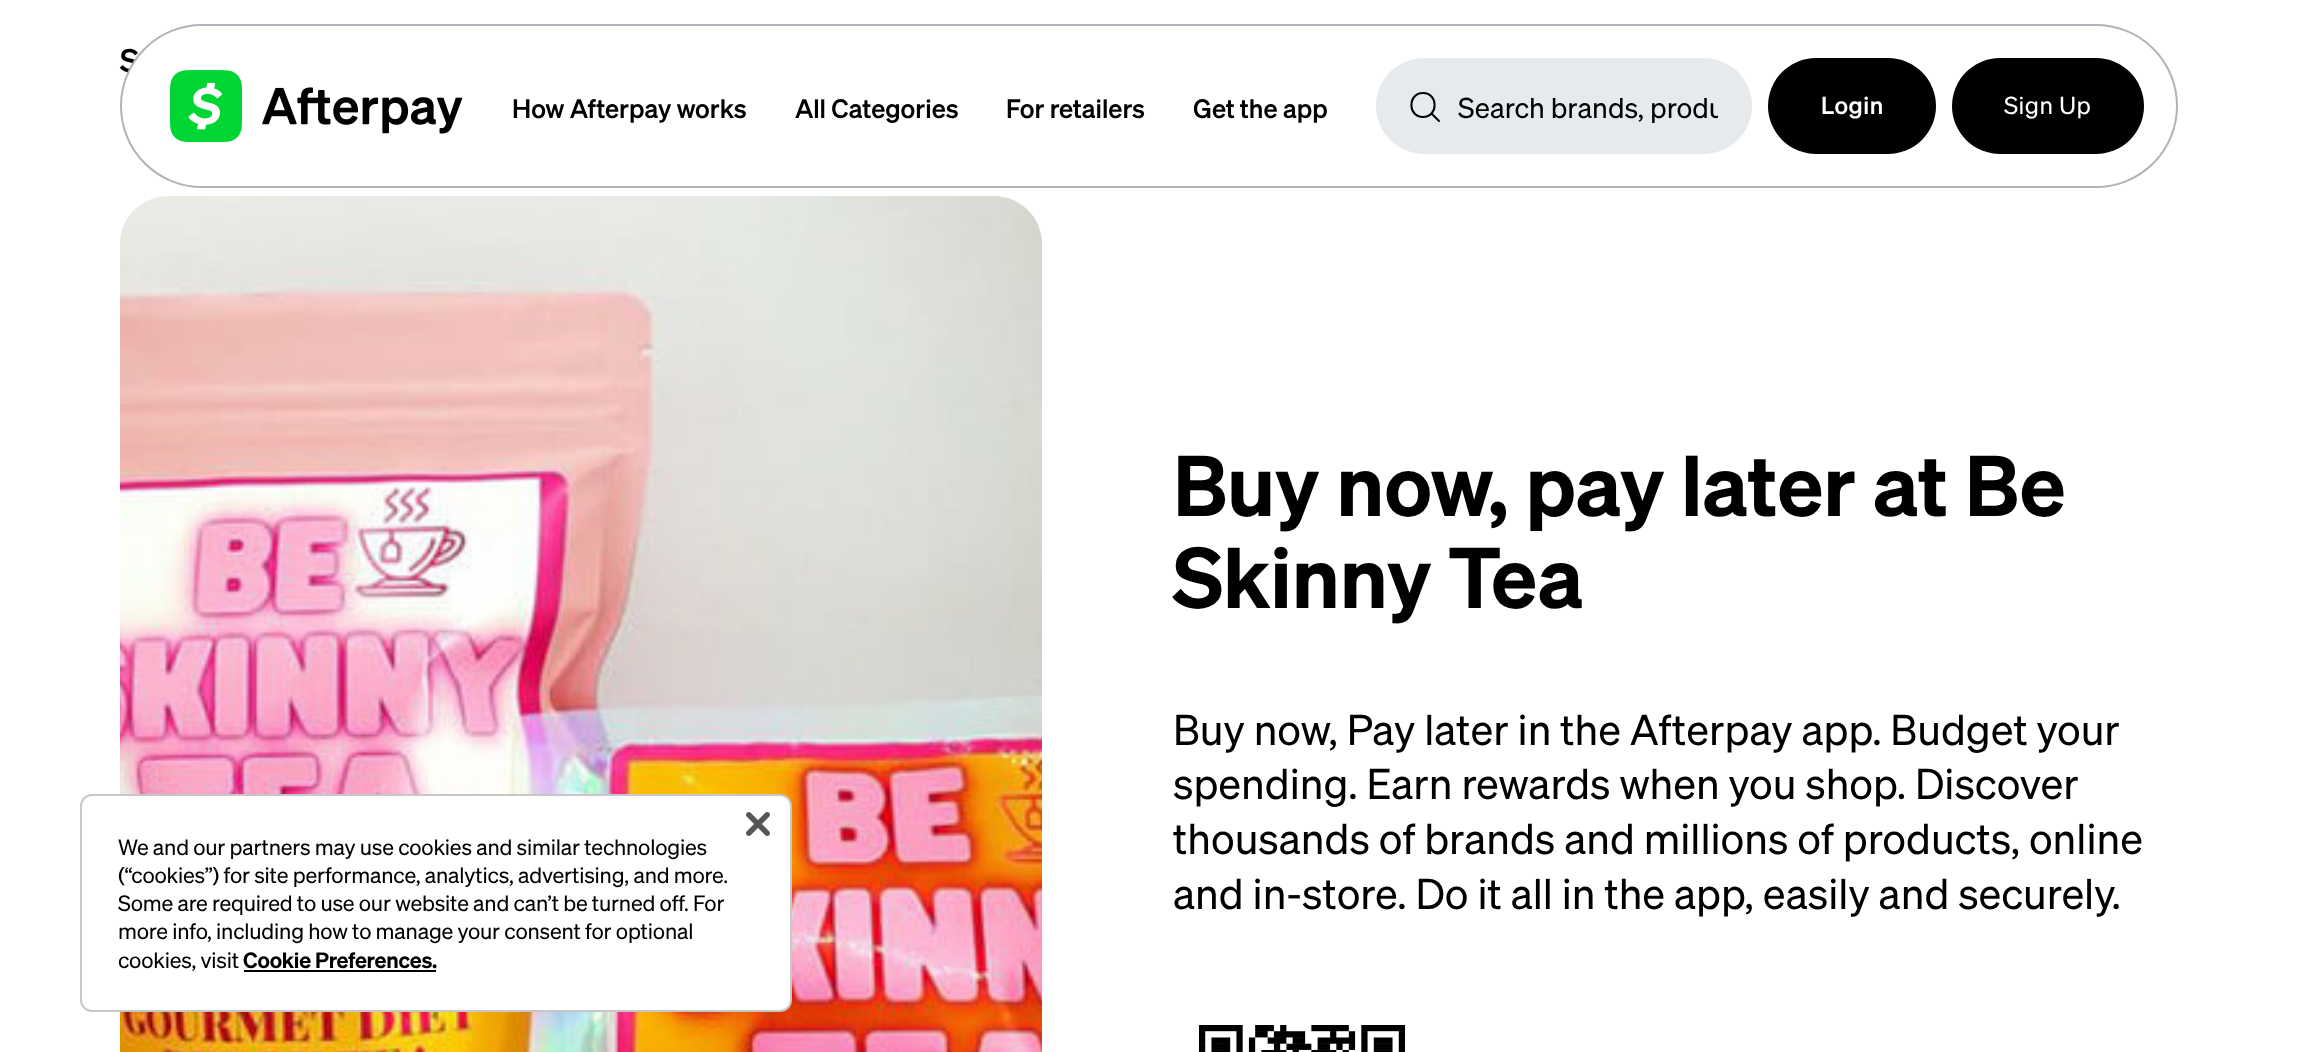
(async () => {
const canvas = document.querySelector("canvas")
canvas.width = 2297
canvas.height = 1052
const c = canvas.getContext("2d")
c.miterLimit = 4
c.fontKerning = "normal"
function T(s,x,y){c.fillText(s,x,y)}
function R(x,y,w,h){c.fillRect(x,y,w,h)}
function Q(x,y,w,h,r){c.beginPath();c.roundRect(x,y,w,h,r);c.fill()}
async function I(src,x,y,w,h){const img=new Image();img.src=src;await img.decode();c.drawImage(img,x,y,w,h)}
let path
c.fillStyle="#fff"
R(0,0,2297,1052)
c.font="500 32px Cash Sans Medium"
c.fillStyle="#000"
T("S",120,72)
await I("1.png",120,196,922,856)
c.font="600 84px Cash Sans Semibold"
T("Buy now, pay later at Be",1173,516)
T("Skinny Tea",1173,608)
c.font="42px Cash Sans"
T("Buy now, Pay later in the Afterpay app. Budget your",1173,745)
T("spending. Earn rewards when you shop. Discover",1173,799)
T("thousands of brands and millions of products, online",1173,854)
T("and in-store. Do it all in the app, easily and securely.",1173,909)
await I("2.png",1198,1025,208,27)
c.fillStyle="#fff"
c.beginPath()
c.roundRect(121,25,2056,162,81)
c.fill()
c.strokeStyle="#aeb4b9"
c.lineWidth=2
c.stroke()
await I("3.png",170,70,293,72)
c.font="500 26px Cash Sans Medium"
c.fillStyle="#000"
T("How Afterpay works",512,118)
T("All Categories",795,118)
T("For retailers",1006,118)
T("Get the app",1193,118)
c.fillStyle="#e7eaed"
Q(1376,58,376,96,48)
path = new Path2D("M1423 117c15.5 0 15.5-24 0-24c-15.5 0-15.5 24 0 24zm16 4l-7.5-7.5")
c.strokeStyle="#000"
c.lineCap="round"
c.lineJoin="round"
c.stroke(path)
c.save()
c.beginPath()
c.rect(1458,88,260,36)
c.clip()
c.font="28px Cash Sans"
c.fillStyle="#000"
T("Search brands, produ",1458,118)
c.restore()
c.fillStyle="#000"
Q(1768,58,168,96,48)
c.letterSpacing="0.5px"
c.font="500 24px Cash Sans Medium"
c.fillStyle="#fff"
T("Login",1821,114)
c.fillStyle="#000"
Q(1952,58,192,96,48)
c.font="24px Cash Sans"
c.fillStyle="#fff"
T("Sign Up",2004,114)
c.beginPath()
c.roundRect(81,795,710,216,11)
c.fill()
c.strokeStyle="#c7c7c7"
c.lineJoin="miter"
c.stroke()
await I("4.png",746,812,24,24)
c.letterSpacing="-0.2px"
c.font="21.75px Cash Sans"
c.fillStyle="#000"
T("We and our partners may use cookies and similar technologies",118,855)
T("(“cookies”) for site performance, analytics, advertising, and more.",118,883)
T("Some are required to use our website and can’t be turned off. For",118,911)
T("more info, including how to manage your consent for optional",118,939)
T("cookies, visit",118,968)
c.font="600 21.75px Cash Sans Semibold"
T("Cookie Preferences.",243,968)
R(244,970,192,2)
})()
